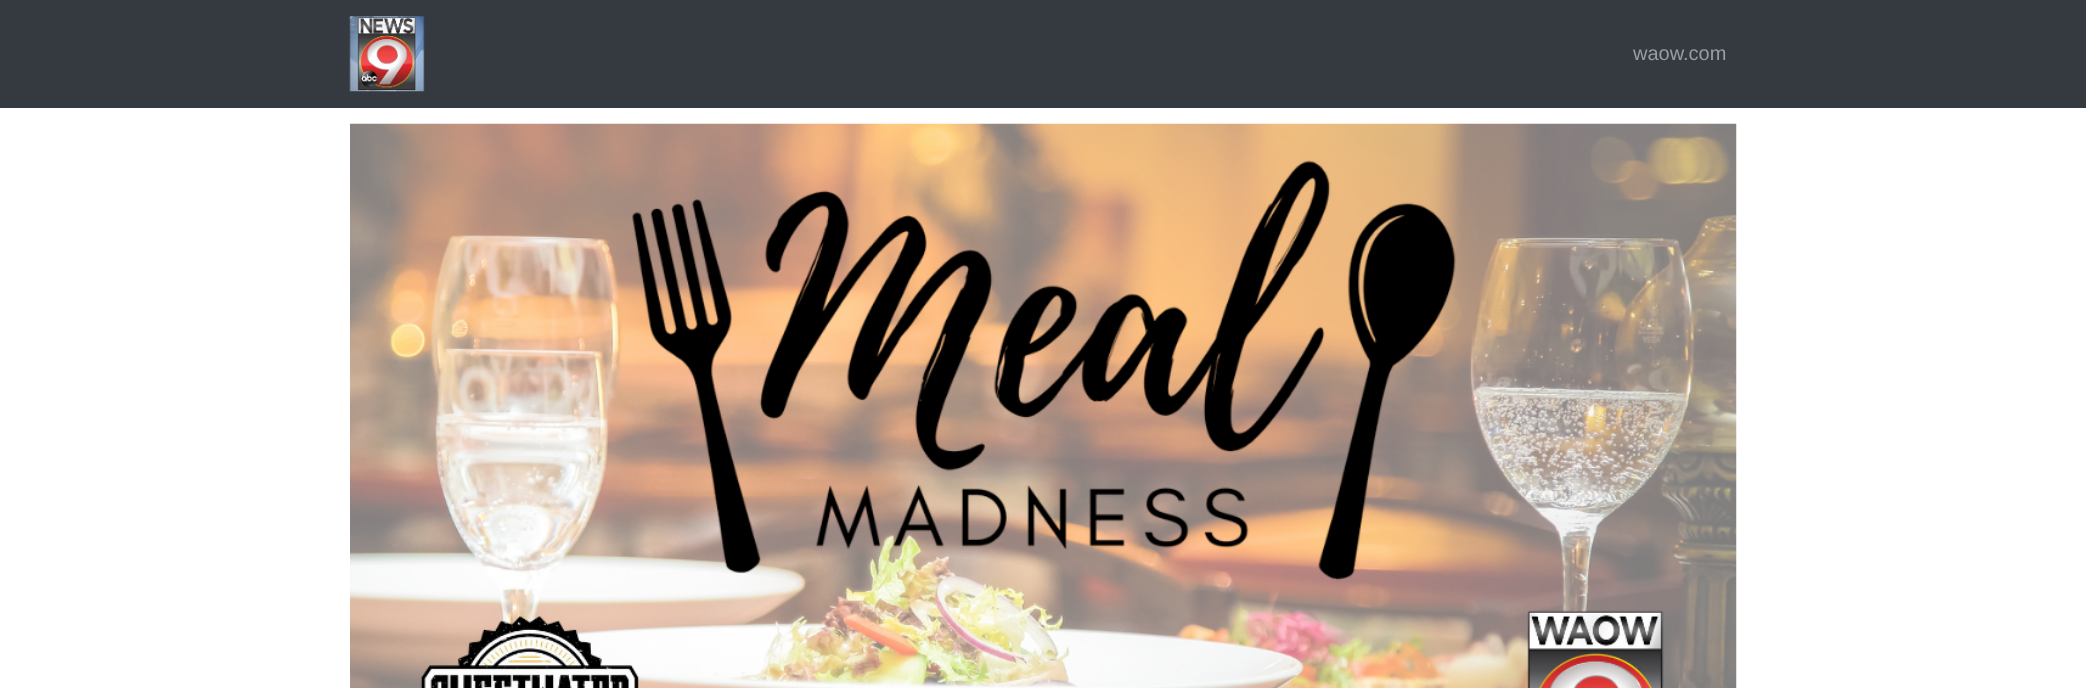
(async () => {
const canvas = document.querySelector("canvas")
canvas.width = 2086
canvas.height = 688
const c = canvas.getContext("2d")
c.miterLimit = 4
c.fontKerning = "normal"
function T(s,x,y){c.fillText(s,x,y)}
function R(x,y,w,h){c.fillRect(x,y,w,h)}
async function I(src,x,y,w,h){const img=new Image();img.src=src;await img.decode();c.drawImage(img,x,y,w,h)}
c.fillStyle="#fff"
R(0,0,2086,688)
c.fillStyle="#343a40"
R(0,0,2086,108)
await I("1.png",349,16,76,76)
c.font="20px Liberation Sans"
c.fillStyle="#9a9da0"
T("waow.com",1633,60)
await I("2.png",350,123,1387,565)
})()
